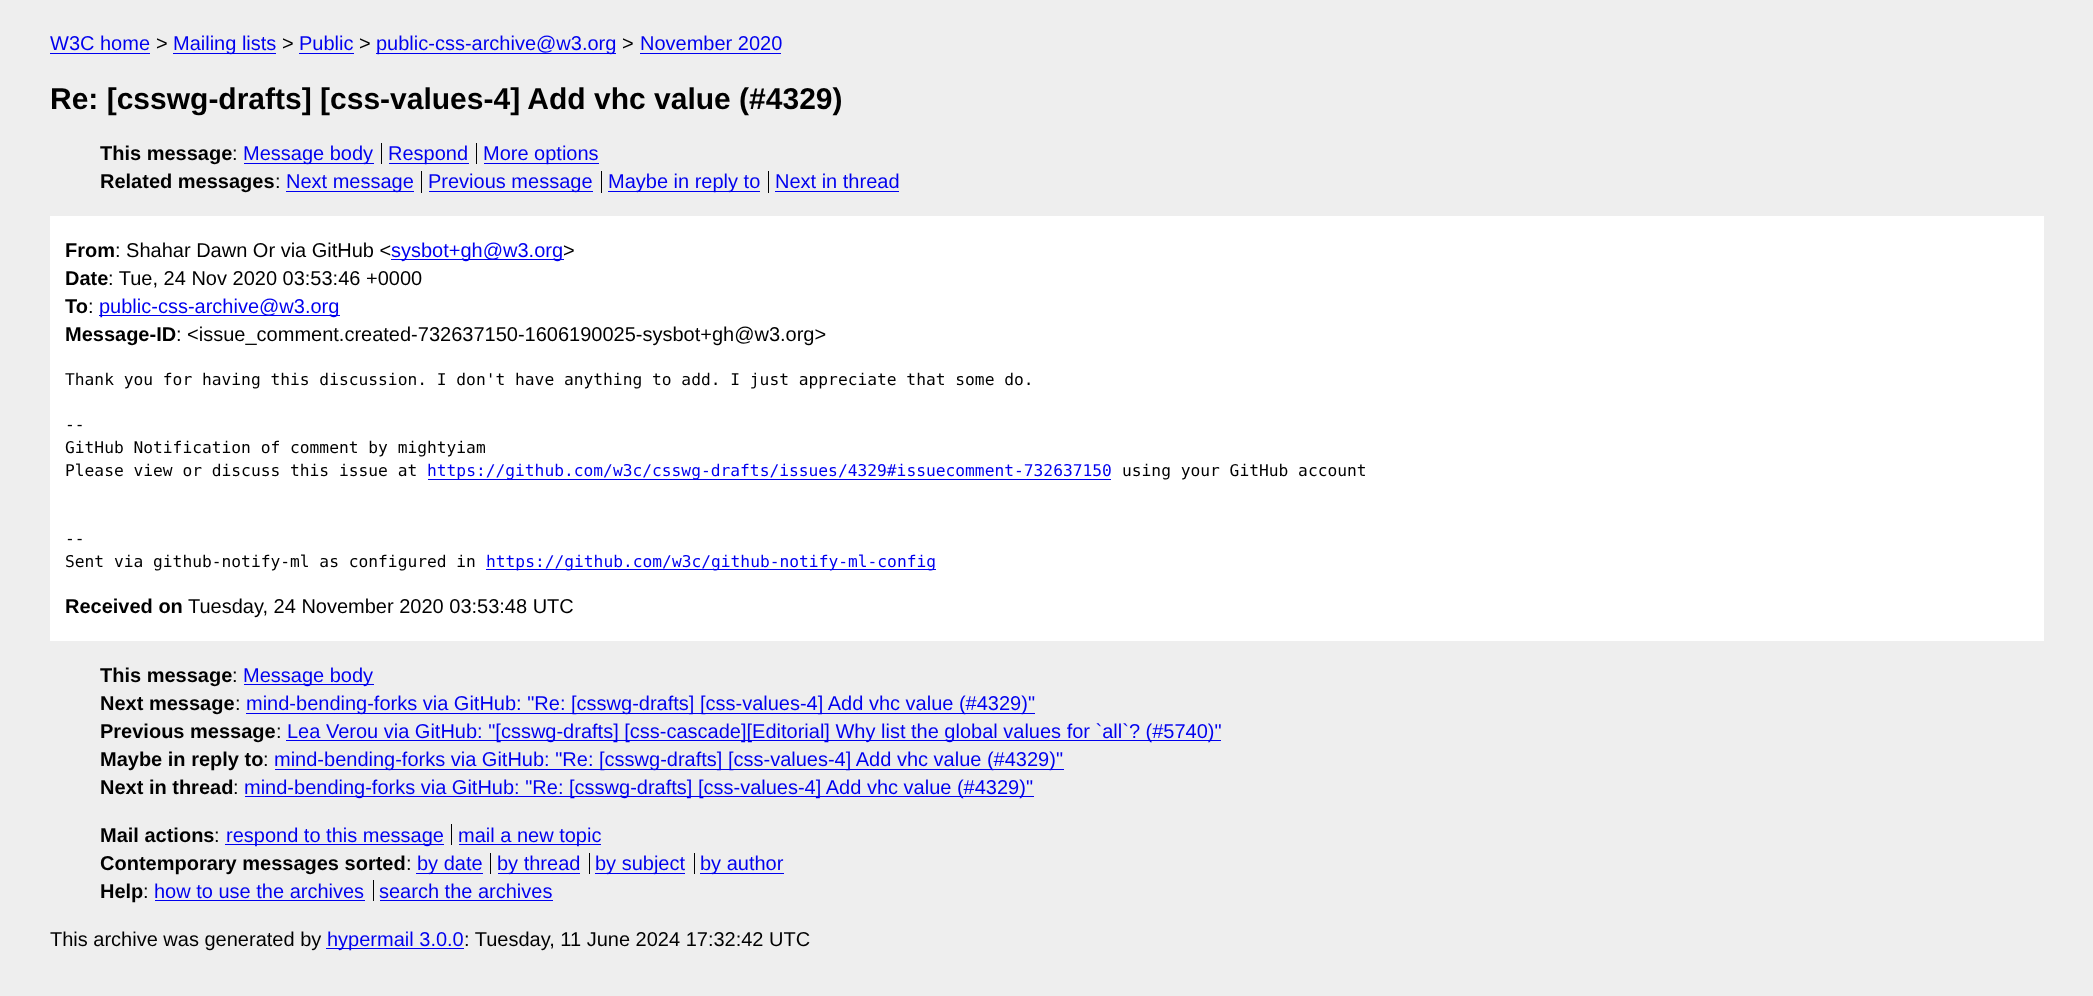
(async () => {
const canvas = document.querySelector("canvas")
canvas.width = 2093
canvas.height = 996
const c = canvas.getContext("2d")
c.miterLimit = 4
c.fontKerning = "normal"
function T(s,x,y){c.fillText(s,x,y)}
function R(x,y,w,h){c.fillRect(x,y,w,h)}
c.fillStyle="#eee"
R(0,0,2093,996)
c.font="20px Liberation Sans"
c.fillStyle="#00e"
T("W3C home",50,50)
R(50,53,100,1)
c.fillStyle="#000"
T(">",156,50)
c.fillStyle="#00e"
R(173,53,103,1)
T("Mailing lists",173,50)
c.fillStyle="#000"
T(">",282,50)
c.fillStyle="#00e"
T("Public",299,50)
R(299,53,55,1)
c.fillStyle="#000"
T(">",359,50)
c.fillStyle="#00e"
R(376,53,240,1)
T("public-css-archive@w3.org",376,50)
c.fillStyle="#000"
T(">",622,50)
c.fillStyle="#00e"
T("November 2020",640,50)
R(640,53,141,1)
c.font="bold 30px Liberation Sans"
c.fillStyle="#000"
T("Re: [csswg-drafts] [css-values-4] Add vhc value (#4329)",50,109)
c.font="bold 20px Liberation Sans"
T("This message",100,160)
c.font="20px Liberation Sans"
T(":",232,160)
c.fillStyle="#00e"
R(244,163,130,1)
T("Message body",243,160)
c.fillStyle="#000"
R(381,143,1,21)
c.fillStyle="#00e"
R(389,163,80,1)
T("Respond",388,160)
R(484,163,115,1)
T("More options",483,160)
c.fillStyle="#000"
R(476,143,1,21)
c.font="bold 20px Liberation Sans"
T("Related messages",100,188)
c.font="20px Liberation Sans"
T(":",275,188)
c.fillStyle="#00e"
R(286,191,128,1)
T("Next message",286,188)
R(429,191,164,1)
T("Previous message",428,188)
c.fillStyle="#000"
R(421,171,1,22)
c.fillStyle="#00e"
R(608,191,152,1)
T("Maybe in reply to",608,188)
c.fillStyle="#000"
R(601,171,1,22)
c.fillStyle="#00e"
T("Next in thread",775,188)
c.fillStyle="#000"
R(768,171,1,22)
c.fillStyle="#00e"
R(775,191,124,1)
c.fillStyle="#fff"
R(50,216,1994,425)
c.font="bold 20px Liberation Sans"
c.fillStyle="#000"
T("From",65,257)
c.font="20px Liberation Sans"
T(": Shahar Dawn Or via GitHub <",115,257)
c.fillStyle="#00e"
R(391,259,173,1)
T("sysbot+gh@w3.org",391,257)
c.fillStyle="#000"
T(">",563,257)
c.font="bold 20px Liberation Sans"
T("Date",65,285)
c.font="20px Liberation Sans"
T(": Tue, 24 Nov 2020 03:53:46 +0000",108,285)
c.font="bold 20px Liberation Sans"
T("To",65,313)
c.font="20px Liberation Sans"
T(":",88,313)
c.fillStyle="#00e"
R(99,315,241,1)
T("public-css-archive@w3.org",99,313)
c.font="bold 20px Liberation Sans"
c.fillStyle="#000"
T("Message-ID",65,341)
c.font="20px Liberation Sans"
T(": <issue_comment.created-732637150-1606190025-sysbot+gh@w3.org>",176,341)
c.font="16.25px DejaVu Sans Mono"
T("Thank you for having this discussion. I don't have anything to add. I just appreciate that some do.",65,385)
T("--",65,430)
T("GitHub Notification of comment by mightyiam",65,453)
T("Please view or discuss this issue at",65,476)
c.fillStyle="#00e"
R(428,479,683,1)
T("https://github.com/w3c/csswg-drafts/issues/4329#issuecomment-732637150",427,476)
c.fillStyle="#000"
T("using your GitHub account",1122,476)
T("--",65,544)
T("Sent via github-notify-ml as configured in",65,567)
c.fillStyle="#00e"
R(486,569,450,1)
T("https://github.com/w3c/github-notify-ml-config",486,567)
c.font="bold 20px Liberation Sans"
c.fillStyle="#000"
T("Received on",65,613)
c.font="20px Liberation Sans"
T("Tuesday, 24 November 2020 03:53:48 UTC",188,613)
c.font="bold 20px Liberation Sans"
T("This message",100,682)
c.font="20px Liberation Sans"
T(":",232,682)
c.fillStyle="#00e"
R(244,684,130,1)
T("Message body",243,682)
c.font="bold 20px Liberation Sans"
c.fillStyle="#000"
T("Next message",100,710)
c.font="20px Liberation Sans"
T(":",235,710)
c.fillStyle="#00e"
R(246,713,789,1)
T("mind-bending-forks via GitHub: \"Re: [csswg-drafts] [css-values-4] Add vhc value (#4329)\"",246,710)
c.font="bold 20px Liberation Sans"
c.fillStyle="#000"
T("Previous message",100,738)
c.font="20px Liberation Sans"
T(":",276,738)
c.fillStyle="#00e"
R(286,740,935,1)
T("Lea Verou via GitHub: \"[csswg-drafts] [css-cascade][Editorial] Why list the global values for `all`? (#5740)\"",287,738)
c.font="bold 20px Liberation Sans"
c.fillStyle="#000"
T("Maybe in reply to",100,766)
c.font="20px Liberation Sans"
T(":",263,766)
c.fillStyle="#00e"
R(275,769,789,1)
T("mind-bending-forks via GitHub: \"Re: [csswg-drafts] [css-values-4] Add vhc value (#4329)\"",274,766)
c.font="bold 20px Liberation Sans"
c.fillStyle="#000"
T("Next in thread",100,794)
c.font="20px Liberation Sans"
T(":",233,794)
c.fillStyle="#00e"
R(245,796,789,1)
T("mind-bending-forks via GitHub: \"Re: [csswg-drafts] [css-values-4] Add vhc value (#4329)\"",244,794)
c.font="bold 20px Liberation Sans"
c.fillStyle="#000"
T("Mail actions",100,842)
c.font="20px Liberation Sans"
T(":",214,842)
c.fillStyle="#00e"
R(225,844,219,1)
T("respond to this message",226,842)
R(459,844,142,1)
T("mail a new topic",458,842)
c.fillStyle="#000"
R(451,824,1,21)
c.font="bold 20px Liberation Sans"
T("Contemporary messages sorted",100,870)
c.font="20px Liberation Sans"
T(":",406,870)
c.fillStyle="#00e"
R(416,873,67,1)
T("by date",417,870)
R(498,873,82,1)
T("by thread",497,870)
c.fillStyle="#000"
R(490,853,1,21)
c.fillStyle="#00e"
R(595,873,90,1)
T("by subject",595,870)
c.fillStyle="#000"
R(589,853,1,21)
c.fillStyle="#00e"
R(700,873,84,1)
T("by author",700,870)
c.fillStyle="#000"
R(694,853,1,21)
c.font="bold 20px Liberation Sans"
T("Help",100,898)
c.font="20px Liberation Sans"
T(":",143,898)
c.fillStyle="#00e"
T("how to use the archives",154,898)
R(155,900,210,1)
T("search the archives",379,898)
c.fillStyle="#000"
R(373,880,1,21)
c.fillStyle="#00e"
R(380,900,173,1)
c.fillStyle="#000"
T("This archive was generated by",50,946)
c.fillStyle="#00e"
R(326,948,138,1)
T("hypermail 3.0.0",327,946)
c.fillStyle="#000"
T(": Tuesday, 11 June 2024 17:32:42 UTC",464,946)
})()
